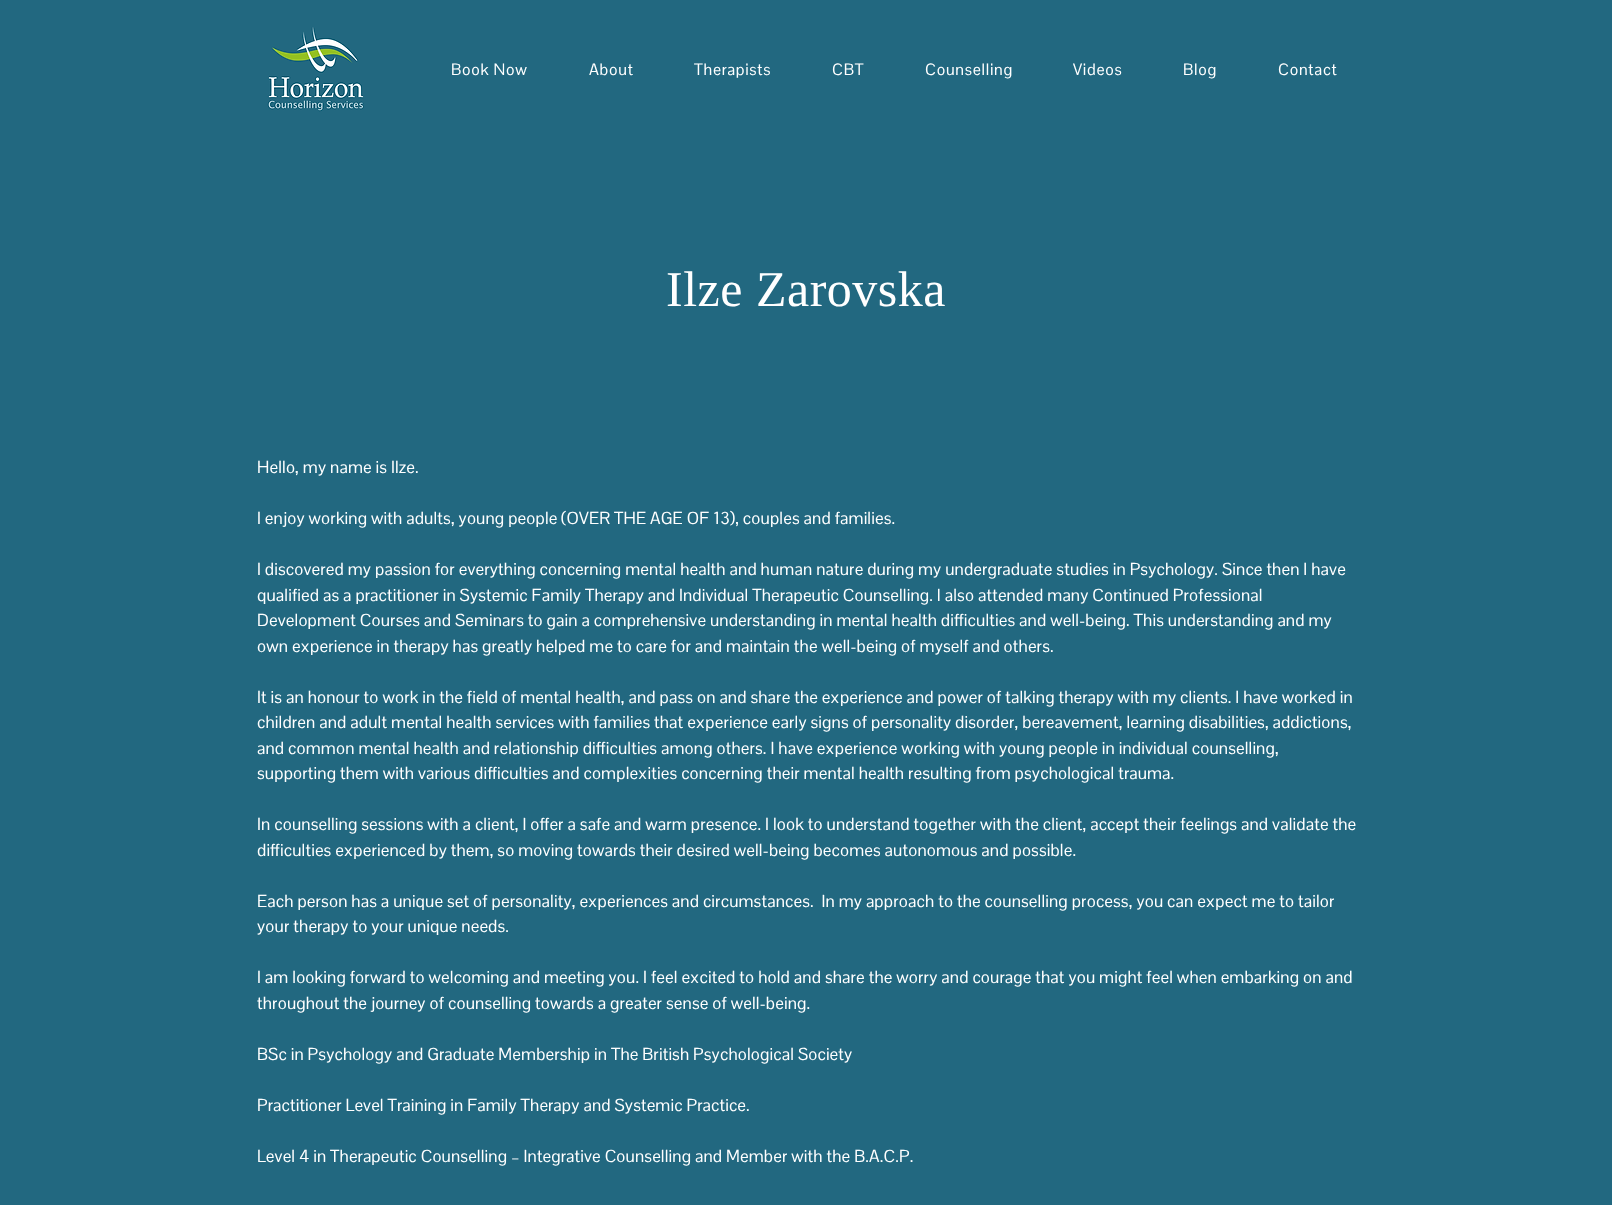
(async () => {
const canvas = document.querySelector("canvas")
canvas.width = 1612
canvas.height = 1205
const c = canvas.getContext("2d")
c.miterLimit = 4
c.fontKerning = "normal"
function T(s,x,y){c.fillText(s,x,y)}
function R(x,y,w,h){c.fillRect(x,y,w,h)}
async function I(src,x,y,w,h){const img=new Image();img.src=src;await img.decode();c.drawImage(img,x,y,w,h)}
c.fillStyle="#226880"
R(0,0,1612,1205)
await I("1.png",267,27,97,85)
c.letterSpacing="0.75px"
c.font="16px Pontano Sans"
c.fillStyle="#fff"
T("Book Now",451,75)
T("About",589,75)
T("Therapists",694,75)
T("CBT",832,75)
T("Counselling",925,75)
T("Videos",1073,75)
T("Blog",1183,75)
T("Contact",1278,75)
c.letterSpacing="0.5px"
c.font="50px Liberation Serif"
T("Ilze Zarovska",666,306)
c.letterSpacing="0.17px"
c.font="17px Pontano Sans"
T("Hello, my name is Ilze.",257,473)
T("I enjoy working with adults, young people (OVER THE AGE OF 13), couples and families.",257,524)
T("I discovered my passion for everything concerning mental health and human nature during my undergraduate studies in Psychology. Since then I have",257,575)
T("qualified as a practitioner in Systemic Family Therapy and Individual Therapeutic Counselling. I also attended many Continued Professional",257,601)
T("Development Courses and Seminars to gain a comprehensive understanding in mental health difficulties and well-being. This understanding and my",257,626)
T("own experience in therapy has greatly helped me to care for and maintain the well-being of myself and others.",257,652)
T("It is an honour to work in the field of mental health, and pass on and share the experience and power of talking therapy with my clients. I have worked in",257,703)
T("children and adult mental health services with families that experience early signs of personality disorder, bereavement, learning disabilities, addictions,",257,728)
T("and common mental health and relationship difficulties among others. I have experience working with young people in individual counselling,",257,754)
T("supporting them with various difficulties and complexities concerning their mental health resulting from psychological trauma.",257,779)
T("In counselling sessions with a client, I offer a safe and warm presence. I look to understand together with the client, accept their feelings and validate the",257,830)
T("difficulties experienced by them, so moving towards their desired well-being becomes autonomous and possible.",257,856)
T("Each person has a unique set of personality, experiences and circumstances.  In my approach to the counselling process, you can expect me to tailor",257,907)
T("your therapy to your unique needs.",257,932)
T("I am looking forward to welcoming and meeting you. I feel excited to hold and share the worry and courage that you might feel when embarking on and",257,983)
T("throughout the journey of counselling towards a greater sense of well-being.",257,1009)
T("BSc in Psychology and Graduate Membership in The British Psychological Society",257,1060)
T("Practitioner Level Training in Family Therapy and Systemic Practice.",257,1111)
T("Level 4 in Therapeutic Counselling – Integrative Counselling and Member with the B.A.C.P.",257,1162)
})()
